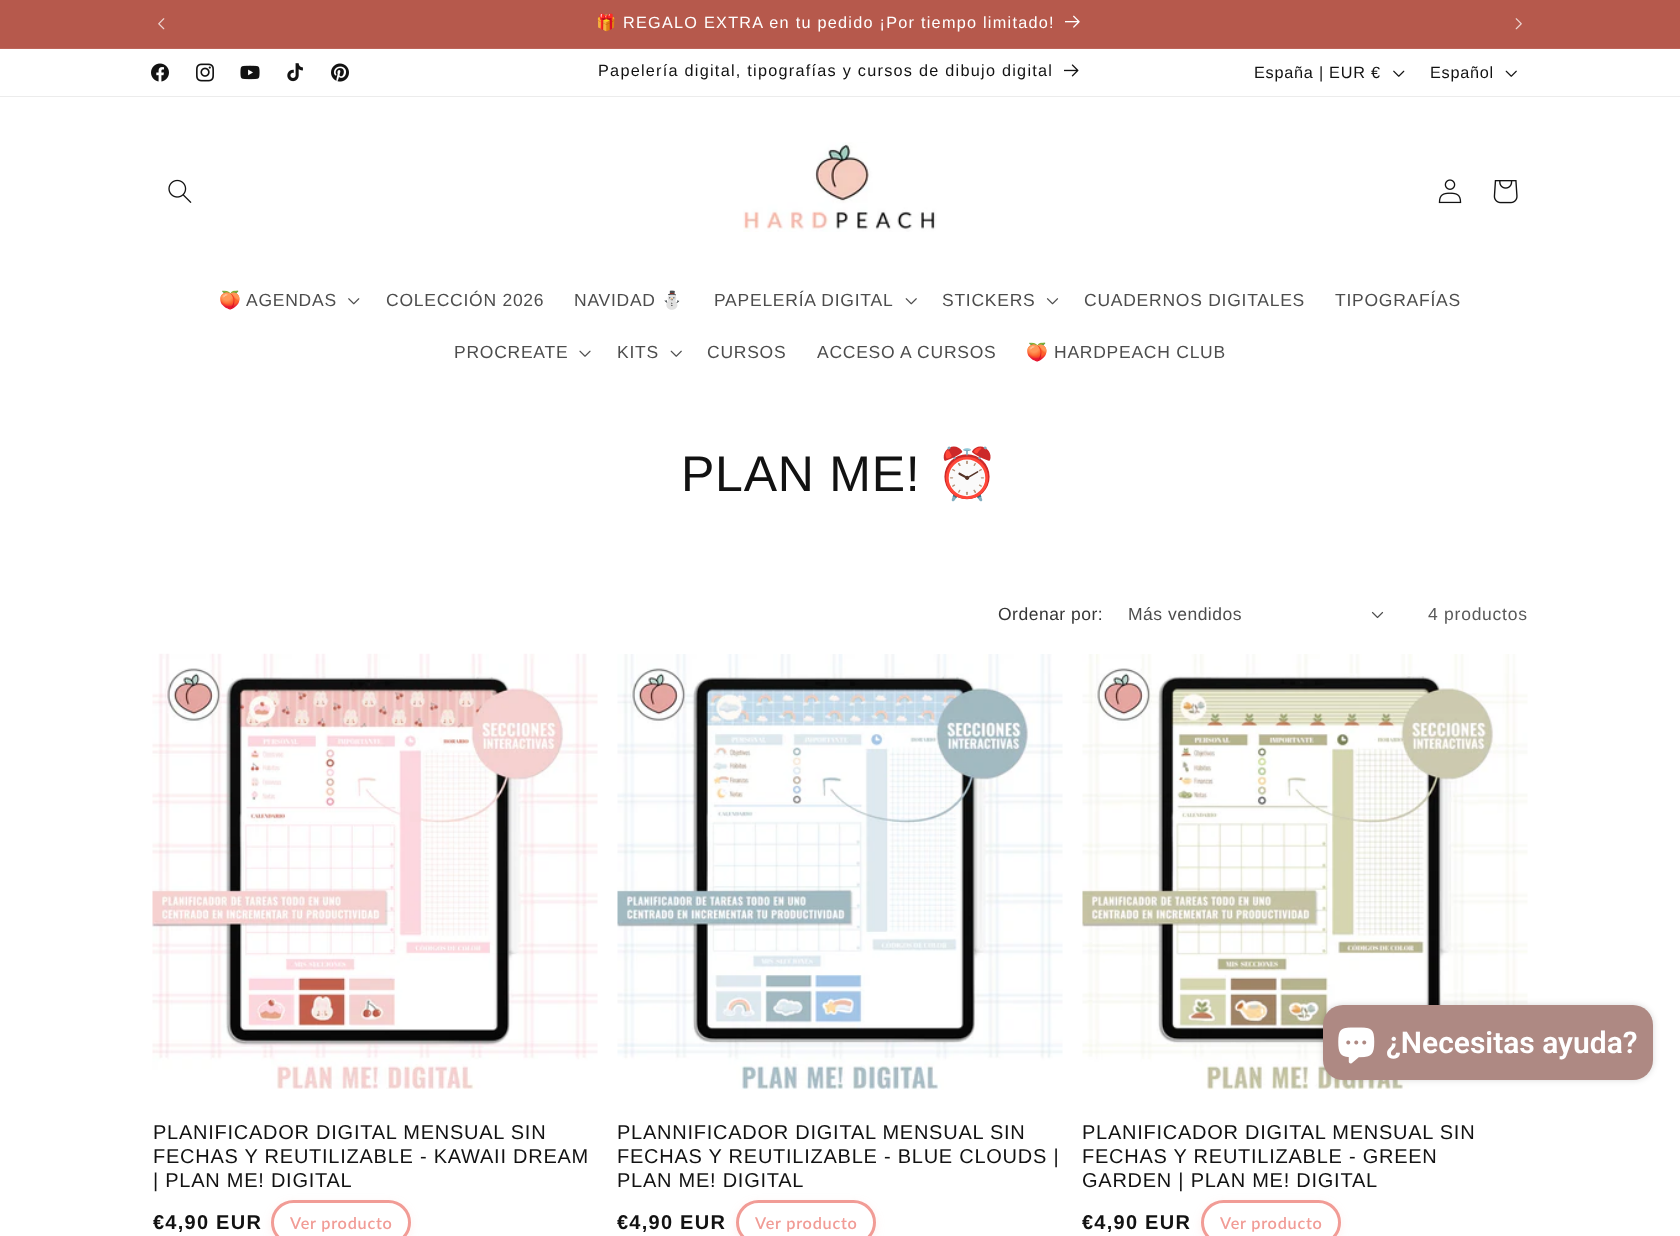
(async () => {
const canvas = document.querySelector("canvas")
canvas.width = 1680
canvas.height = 1236
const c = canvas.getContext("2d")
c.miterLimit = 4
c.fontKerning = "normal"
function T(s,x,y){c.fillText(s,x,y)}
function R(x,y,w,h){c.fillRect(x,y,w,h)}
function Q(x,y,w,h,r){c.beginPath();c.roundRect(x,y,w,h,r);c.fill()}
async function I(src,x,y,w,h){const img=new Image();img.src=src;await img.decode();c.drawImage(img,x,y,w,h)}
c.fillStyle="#fff"
R(0,0,1680,1236)
c.fillStyle="#b6594c"
R(0,0,1680,48)
c.fillStyle="#bc665a"
R(0,48,1680,1)
await I("1.png",158,18,7,12)
c.letterSpacing="1.25px"
c.font="16.25px Noto Color Emoji"
c.fillStyle="#fff"
T("🎁",596,28)
c.font="16.25px Liberation Sans"
T("REGALO EXTRA en tu pedido ¡Por tiempo limitado!",623,28)
await I("2.png",1065,15,15,13)
await I("3.png",1515,18,7,12)
c.fillStyle="#ececec"
R(0,96,1680,1)
await I("4.png",151,63,18,19)
await I("5.png",196,63,18,19)
await I("6.png",240,65,20,15)
await I("7.png",287,63,16,19)
await I("8.png",331,63,18,19)
c.fillStyle="#121212"
T("Papelería digital, tipografías y cursos de dibujo digital",598,76)
await I("9.png",1064,64,15,13)
c.letterSpacing="0.75px"
T("España | EUR €",1254,78)
await I("10.png",1393,70,12,7)
T("Español",1430,78)
await I("11.png",1505,70,12,7)
await I("12.png",168,179,24,24)
await I("13.png",743,142,194,90)
await I("14.png",1438,179,24,25)
await I("15.png",1493,180,25,24)
c.font="17.5px Noto Color Emoji"
c.fillStyle="#4d4d4d"
T("🍑",219,306)
c.font="17.5px Liberation Sans"
T("AGENDAS",246,306)
await I("16.png",348,298,12,7)
T("COLECCIÓN 2026",386,306)
T("NAVIDAD",574,306)
c.font="17.5px Noto Color Emoji"
T("⛄",661,306)
c.font="17.5px Liberation Sans"
T("PAPELERÍA DIGITAL",714,306)
await I("17.png",905,298,12,7)
T("STICKERS",942,306)
await I("18.png",1046,298,13,7)
T("CUADERNOS DIGITALES",1084,306)
T("TIPOGRAFÍAS",1335,306)
T("PROCREATE",454,358)
await I("19.png",579,350,12,7)
T("KITS",617,358)
await I("20.png",670,350,12,7)
T("CURSOS",707,358)
T("ACCESO A CURSOS",817,358)
c.font="17.5px Noto Color Emoji"
T("🍑",1026,358)
c.font="17.5px Liberation Sans"
T("HARDPEACH CLUB",1054,358)
c.font="50px Liberation Sans"
c.fillStyle="#121212"
T("PLAN ME!",681,491)
c.font="50px Noto Color Emoji"
T("⏰",936,491)
c.letterSpacing="0.5px"
c.font="17.5px Liberation Sans"
c.fillStyle="#363636"
T("Ordenar por:",998,620)
c.fillStyle="#4d4d4d"
T("Más vendidos",1128,620)
await I("21.png",1371,611,13,8)
c.letterSpacing="0.75px"
c.fillStyle="#595959"
T("4 productos",1428,620)
await I("22.png",152,653,446,436)
c.font="20px Liberation Sans"
c.fillStyle="#121212"
T("PLANIFICADOR DIGITAL MENSUAL SIN",153,1139)
T("FECHAS Y REUTILIZABLE - KAWAII DREAM",153,1163)
T("| PLAN ME! DIGITAL",153,1187)
c.letterSpacing="1.25px"
c.font="bold 20px Liberation Sans"
T("€4,90 EUR",153,1229)
c.fillStyle="#f19c9626"
c.filter="blur(5px)"
c.beginPath()
c.roundRect(271,1203,140,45,22.5)
c.fill()
c.filter="none"
c.fillStyle="#fff"
c.beginPath()
c.roundRect(272.5,1201.5,137,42,21)
c.fill()
c.strokeStyle="#f19c96"
c.lineWidth=3
c.stroke()
c.letterSpacing="0.75px"
c.font="600 16.25px Lato"
c.fillStyle="#f19c96"
T("Ver producto",290,1229)
await I("23.png",617,654,446,436)
c.font="20px Liberation Sans"
c.fillStyle="#121212"
T("PLANNIFICADOR DIGITAL MENSUAL SIN",617,1139)
T("FECHAS Y REUTILIZABLE - BLUE CLOUDS |",617,1163)
T("PLAN ME! DIGITAL",617,1187)
c.letterSpacing="1.25px"
c.font="bold 20px Liberation Sans"
T("€4,90 EUR",617,1229)
c.fillStyle="#f19c9626"
c.filter="blur(5px)"
c.beginPath()
c.roundRect(736,1203,140,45,22.5)
c.fill()
c.filter="none"
c.fillStyle="#fff"
c.beginPath()
c.roundRect(737.5,1201.5,137,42,21)
c.fill()
c.stroke()
c.letterSpacing="0.75px"
c.font="600 16.25px Lato"
c.fillStyle="#f19c96"
T("Ver producto",755,1229)
await I("24.png",1082,654,446,436)
c.font="20px Liberation Sans"
c.fillStyle="#121212"
T("PLANIFICADOR DIGITAL MENSUAL SIN",1082,1139)
T("FECHAS Y REUTILIZABLE - GREEN",1082,1163)
T("GARDEN | PLAN ME! DIGITAL",1082,1187)
c.letterSpacing="1.25px"
c.font="bold 20px Liberation Sans"
T("€4,90 EUR",1082,1229)
c.fillStyle="#f19c9626"
c.filter="blur(5px)"
c.beginPath()
c.roundRect(1201,1203,140,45,22.5)
c.fill()
c.filter="none"
c.fillStyle="#fff"
c.beginPath()
c.roundRect(1202.5,1201.5,137,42,21)
c.fill()
c.stroke()
c.letterSpacing="0.75px"
c.font="600 16.25px Lato"
c.fillStyle="#f19c96"
T("Ver producto",1220,1229)
c.fillStyle="#00000026"
c.filter="blur(3px)"
c.beginPath()
c.roundRect(1323,1005,330,75,20)
c.fill()
c.filter="none"
c.fillStyle="#ae8983"
Q(1323,1005,330,75,20)
await I("25.png",1338,1027,37,37)
c.letterSpacing="0px"
c.font="600 30px Roboto"
c.fillStyle="#fff"
T("¿Necesitas ayuda?",1386,1053)
})()
